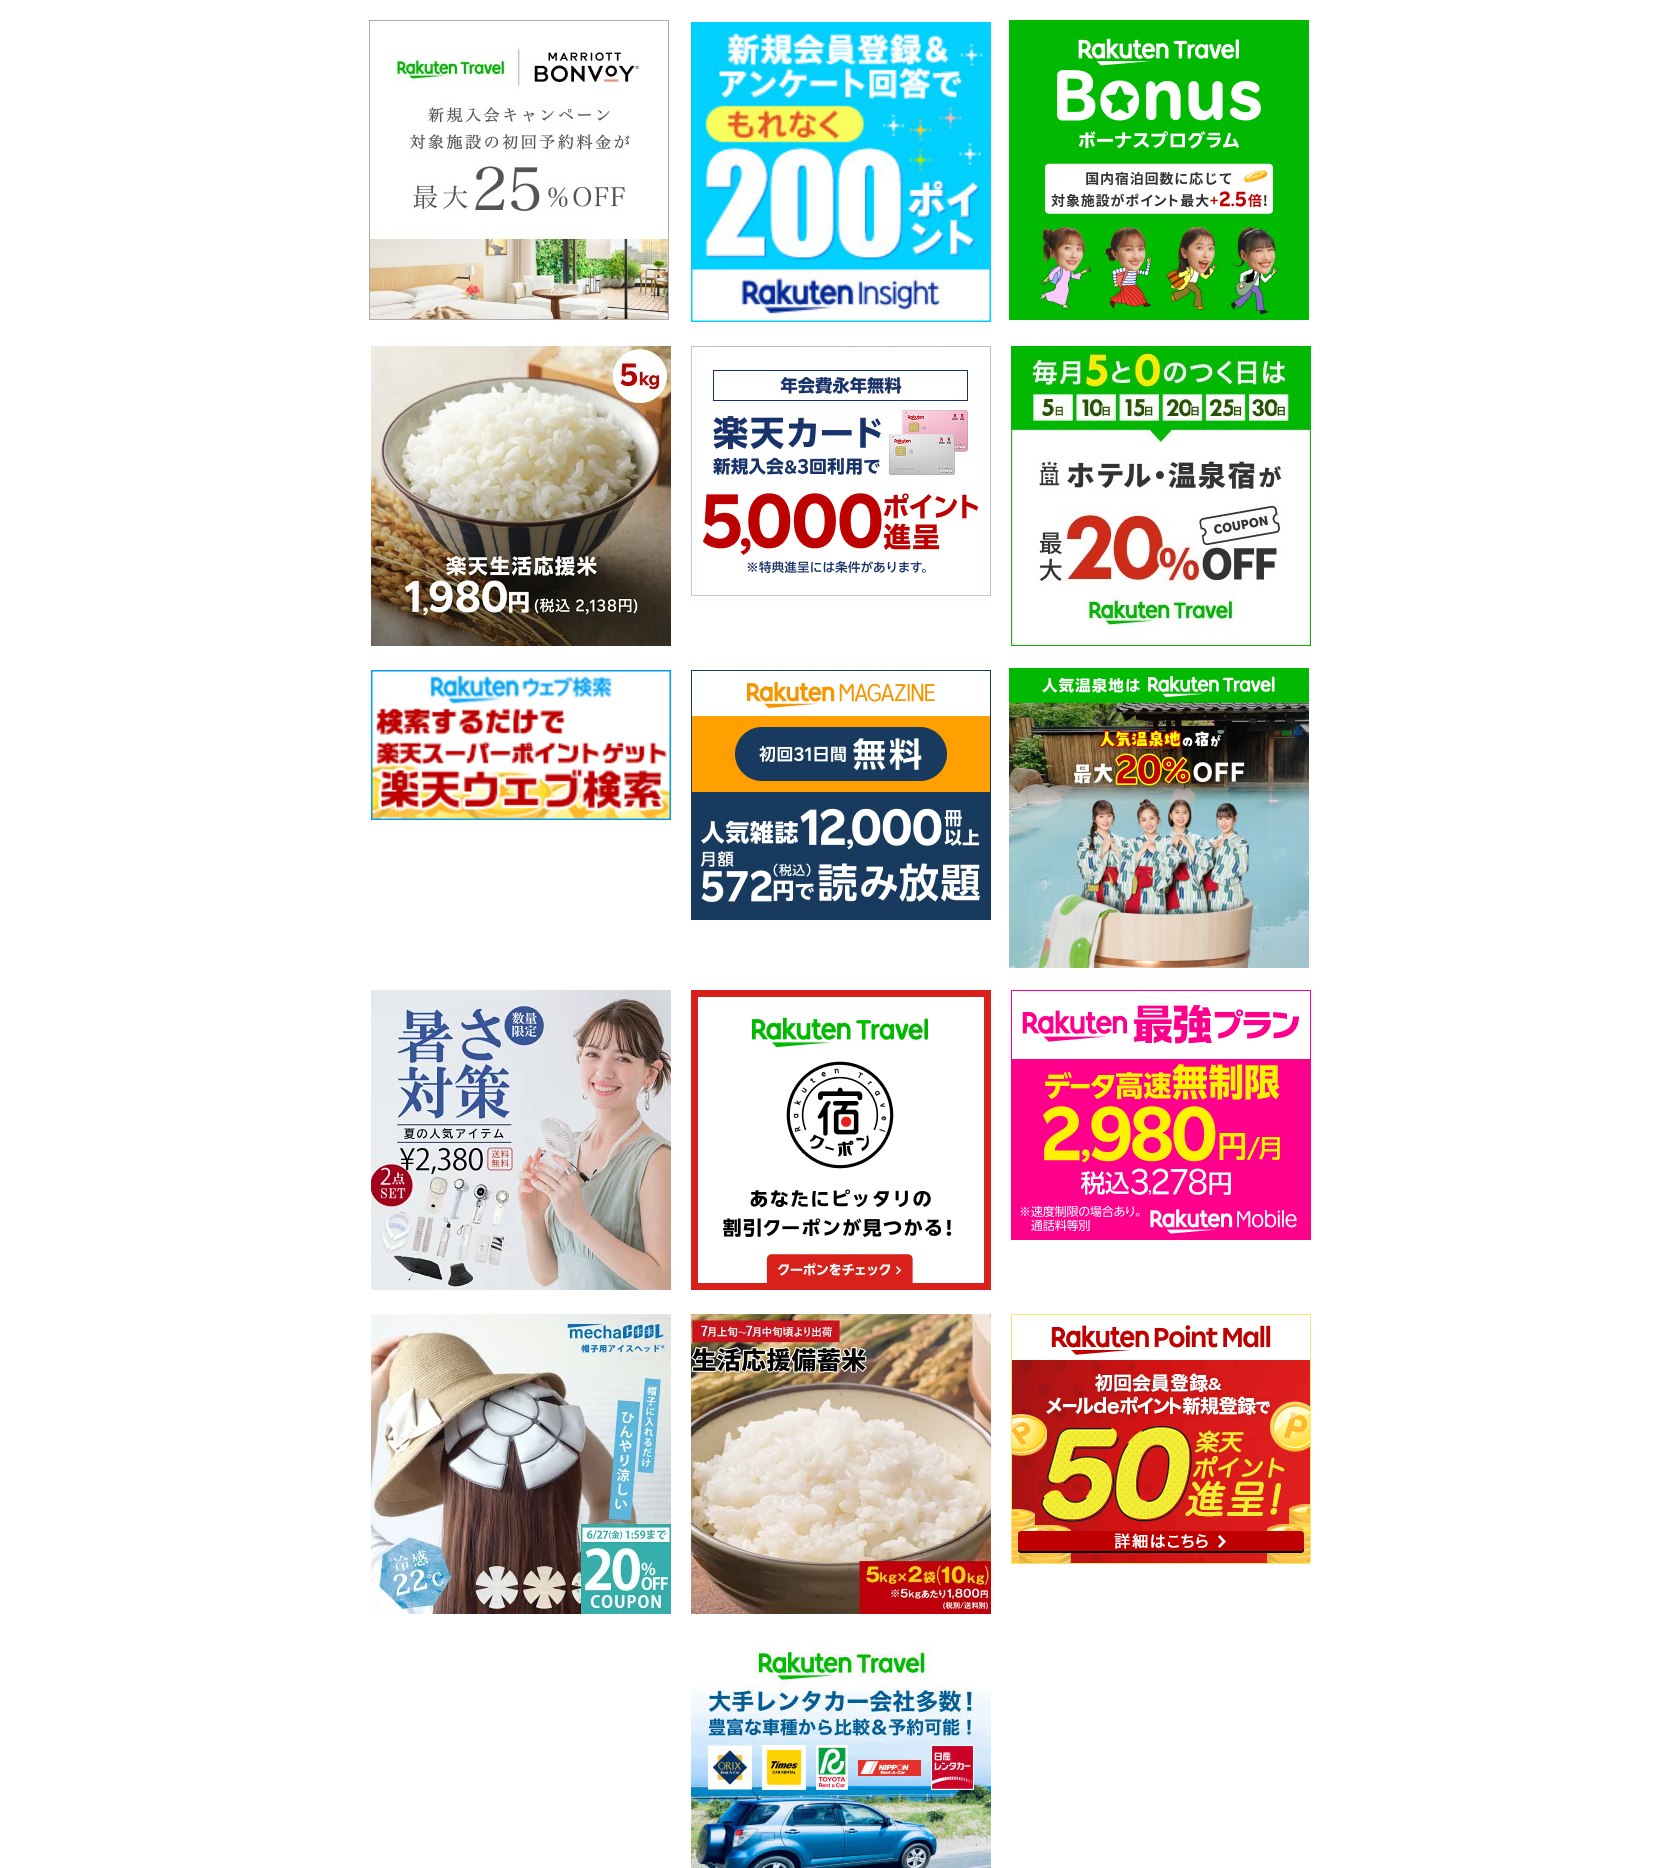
(async () => {
const canvas = document.querySelector("canvas")
canvas.width = 1677
canvas.height = 1868
const c = canvas.getContext("2d")
c.miterLimit = 4
c.fontKerning = "normal"
function R(x,y,w,h){c.fillRect(x,y,w,h)}
async function I(src,x,y,w,h){const img=new Image();img.src=src;await img.decode();c.drawImage(img,x,y,w,h)}
c.fillStyle="#fff"
R(0,0,1677,1868)
await I("1.png",369,20,300,300)
await I("2.png",691,22,300,300)
await I("3.png",1009,20,300,300)
await I("4.png",371,346,300,300)
await I("5.png",691,346,300,250)
await I("6.png",1011,346,300,300)
await I("7.png",371,670,300,150)
await I("8.png",691,670,300,250)
await I("9.png",1009,668,300,300)
await I("10.png",371,990,300,300)
await I("11.png",691,990,300,300)
await I("12.png",1011,990,300,250)
await I("13.png",371,1314,300,300)
await I("14.png",691,1314,300,300)
await I("15.png",1011,1314,300,250)
await I("16.png",691,1646,300,222)
})()
